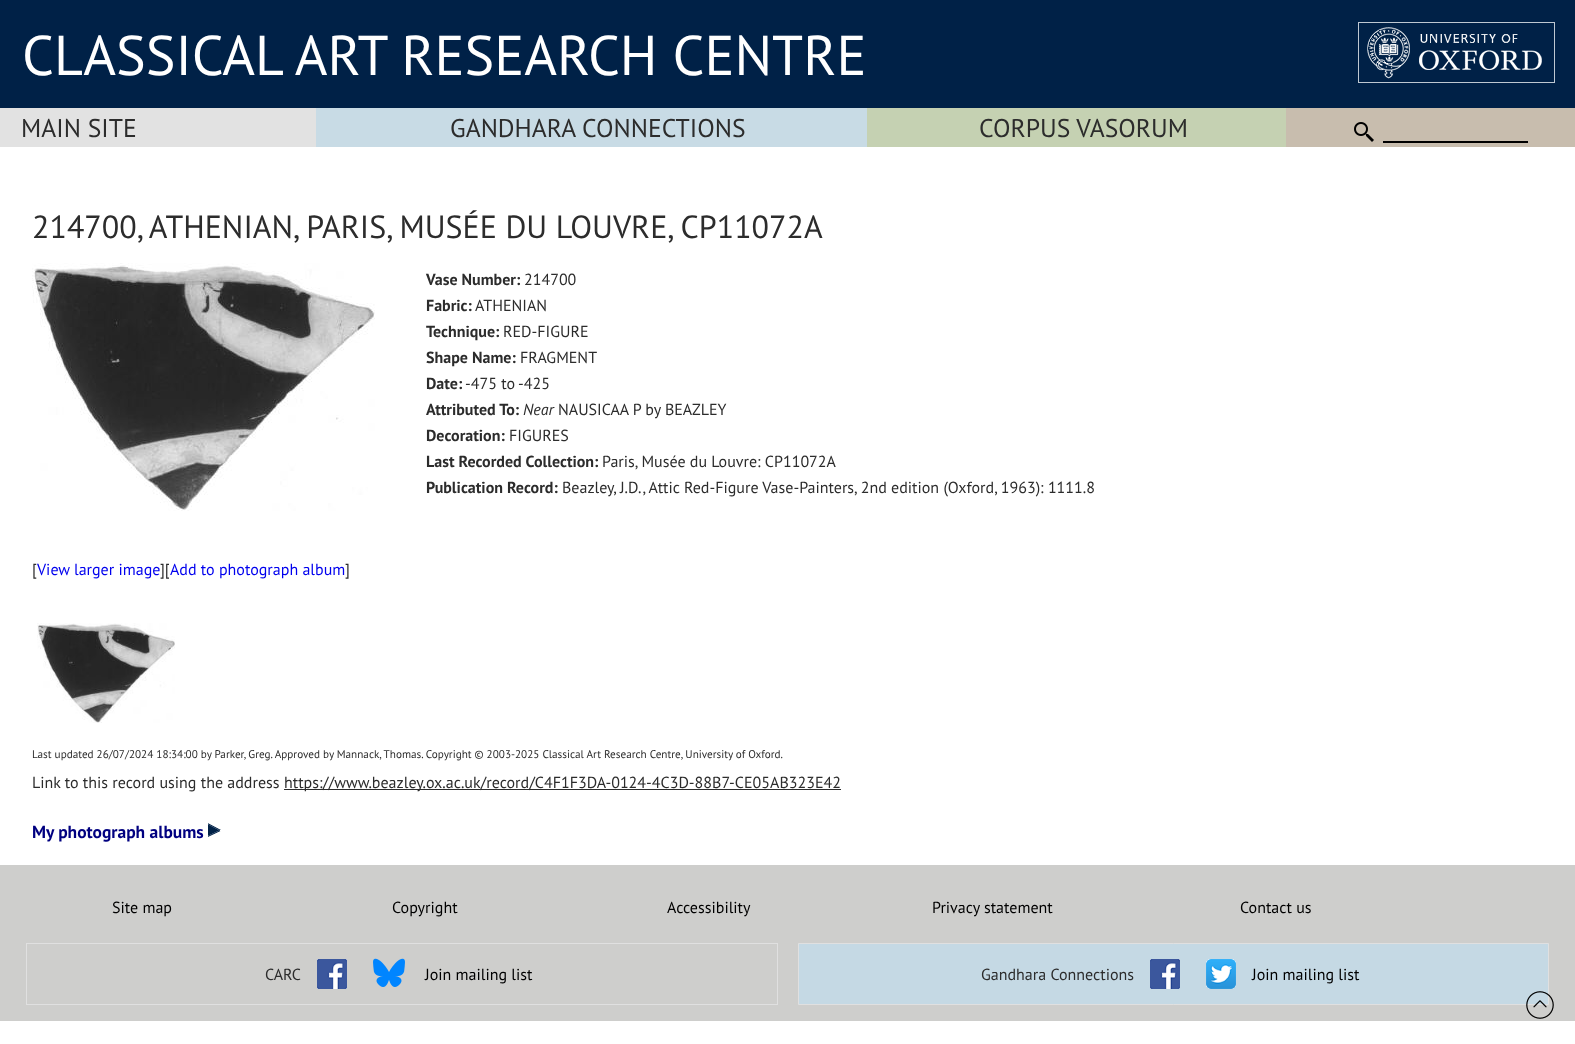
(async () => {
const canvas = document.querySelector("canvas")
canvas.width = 1575
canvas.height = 1044
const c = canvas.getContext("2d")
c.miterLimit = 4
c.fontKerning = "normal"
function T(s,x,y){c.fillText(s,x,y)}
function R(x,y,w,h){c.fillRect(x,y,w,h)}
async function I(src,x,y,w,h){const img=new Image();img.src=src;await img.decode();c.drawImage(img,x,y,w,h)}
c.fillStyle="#fff"
R(0,0,1575,1044)
c.fillStyle="#002147"
R(0,0,1575,108)
c.font="56px PT Sans"
c.fillStyle="#fff"
T("CLASSICAL ART RESEARCH CENTRE",22,75)
await I("1.png",1358,22,197,61)
c.fillStyle="#e2e2e2"
R(0,108,316,39)
c.font="25.6px PT Sans"
c.fillStyle="#2c2c2c"
T("MAIN SITE",21,137)
c.fillStyle="#c8dbe5"
R(316,108,551,39)
c.fillStyle="#2c2c2c"
T("GANDHARA CONNECTIONS",450,137)
c.fillStyle="#c5d1b2"
R(867,108,419,39)
c.fillStyle="#2c2c2c"
T("CORPUS VASORUM",979,137)
c.fillStyle="#c8bdae"
R(1286,108,289,39)
await I("2.png",1354,122,20,20)
c.fillStyle="#000"
R(1383,141,145,2)
c.font="32px PT Sans"
c.fillStyle="#2c2c2c"
T("214700, ATHENIAN, PARIS, MUSÉE DU LOUVRE, CP11072A",32,238)
c.font="bold 16px PT Sans"
T("Vase Number:",426,285)
c.font="16px PT Sans"
T("214700",524,285)
c.font="bold 16px PT Sans"
T("Fabric:",426,311)
c.font="16px PT Sans"
T("ATHENIAN",475,311)
c.font="bold 16px PT Sans"
T("Technique:",426,337)
c.font="16px PT Sans"
T("RED-FIGURE",503,337)
c.font="bold 16px PT Sans"
T("Shape Name:",426,363)
c.font="16px PT Sans"
T("FRAGMENT",520,363)
c.font="bold 16px PT Sans"
T("Date:",426,389)
c.font="16px PT Sans"
T("-475 to -425",465,389)
c.font="bold 16px PT Sans"
T("Attributed To:",426,415)
c.font="italic 16px PT Sans"
T("Near",523,415)
c.font="16px PT Sans"
T("NAUSICAA P by BEAZLEY",558,415)
c.font="bold 16px PT Sans"
T("Decoration:",426,441)
c.font="16px PT Sans"
T("FIGURES",509,441)
c.font="bold 16px PT Sans"
T("Last Recorded Collection:",426,467)
c.font="16px PT Sans"
T("Paris, Musée du Louvre: CP11072A",602,467)
c.font="bold 16px PT Sans"
T("Publication Record:",426,493)
c.font="16px PT Sans"
T("Beazley, J.D., Attic Red-Figure Vase-Painters, 2nd edition (Oxford, 1963): 1111.8",562,493)
await I("3.png",32,263,343,248)
T("[",32,575)
c.fillStyle="#00e"
T("View larger image",37,575)
c.fillStyle="#2c2c2c"
T("][",160,575)
c.fillStyle="#00e"
T("Add to photograph album",170,575)
c.fillStyle="#2c2c2c"
T("]",345,575)
await I("4.png",37,623,138,100)
c.font="11.2px PT Sans"
T("Last updated 26/07/2024 18:34:00 by Parker, Greg. Approved by Mannack, Thomas. Copyright © 2003-2025 Classical Art Research Centre, University of Oxford.",32,758)
c.font="16px PT Sans"
T("Link to this record using the address",32,788)
R(284,789,557,1)
T("https://www.beazley.ox.ac.uk/record/C4F1F3DA-0124-4C3D-88B7-CE05AB323E42",284,788)
c.font="bold 17.5px PT Sans"
c.fillStyle="#000080"
T("My photograph albums",32,838)
await I("5.png",208,823,13,14)
c.fillStyle="#cececc"
R(0,865,1575,156)
c.font="16px PT Sans"
c.fillStyle="#000"
T("Site map",112,913)
T("Copyright",392,913)
T("Accessibility",667,913)
T("Privacy statement",932,913)
T("Contact us",1240,913)
c.strokeStyle="#e0e0e0"
c.strokeRect(26.5,943.5,751,61)
c.fillStyle="#2c2c2c"
T("CARC",265,980)
await I("6.png",317,959,30,30)
await I("7.png",373,958,32,29)
c.fillStyle="#000"
T("Join mailing list",425,980)
c.fillStyle="#c5d9e4"
c.beginPath()
c.rect(798.5,943.5,750,61)
c.fill()
c.stroke()
c.fillStyle="#2c2c2c"
T("Gandhara Connections",981,980)
await I("6.png",1150,959,30,30)
await I("8.png",1206,959,30,30)
c.fillStyle="#000"
T("Join mailing list",1252,980)
await I("9.png",1526,991,28,28)
})()
